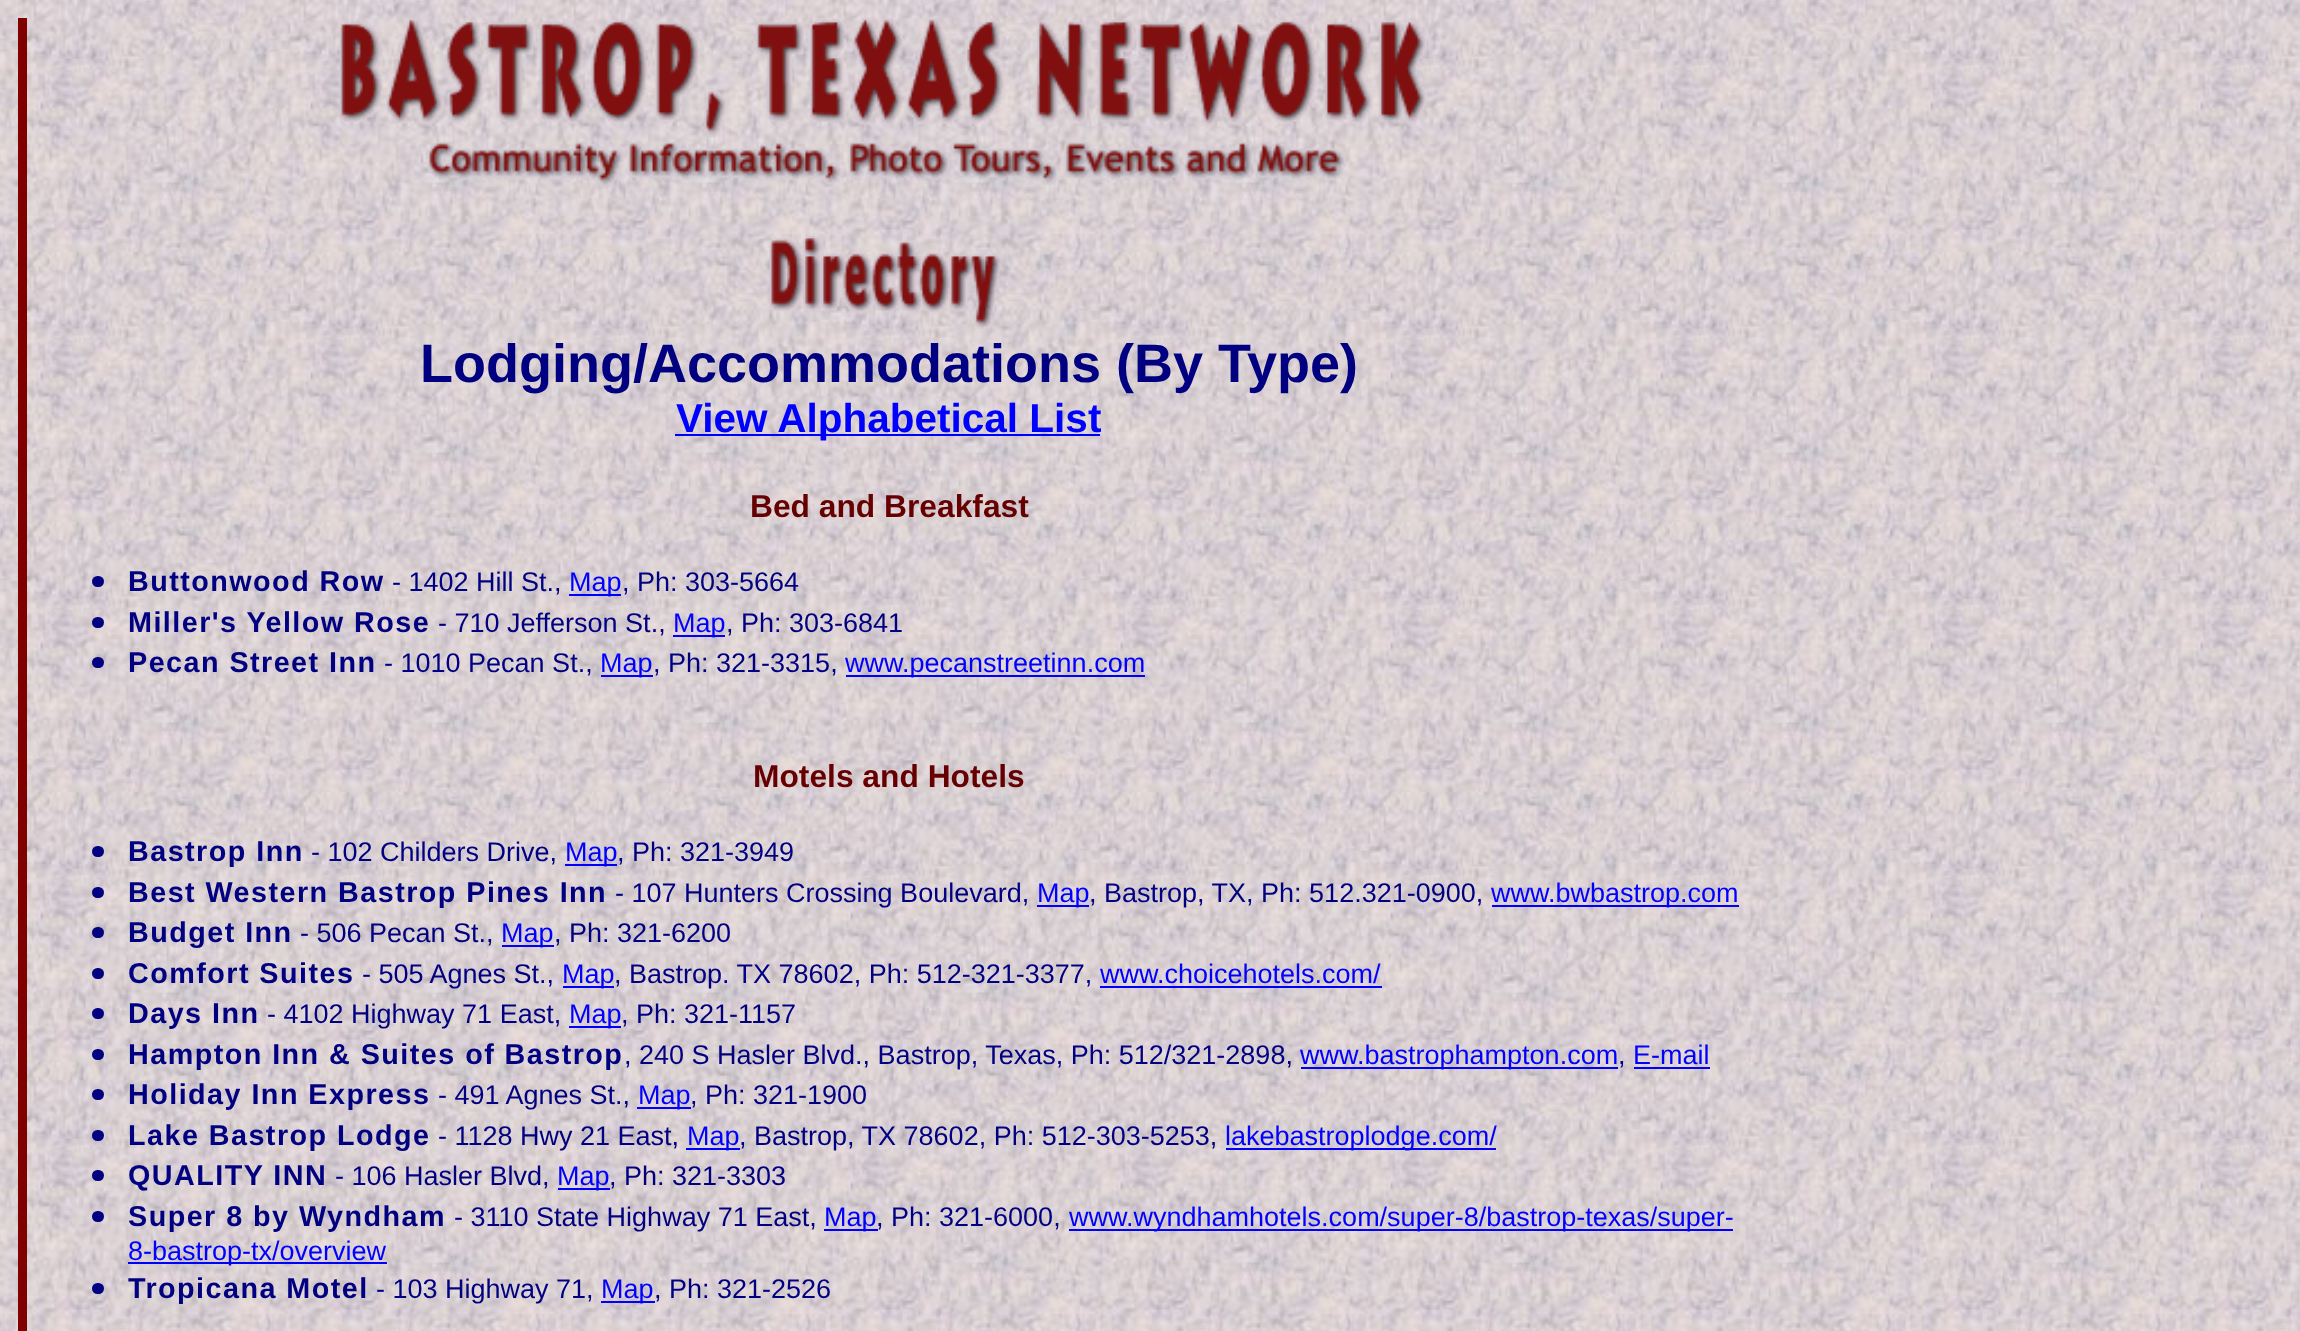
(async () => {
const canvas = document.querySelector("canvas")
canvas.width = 2300
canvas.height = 1331
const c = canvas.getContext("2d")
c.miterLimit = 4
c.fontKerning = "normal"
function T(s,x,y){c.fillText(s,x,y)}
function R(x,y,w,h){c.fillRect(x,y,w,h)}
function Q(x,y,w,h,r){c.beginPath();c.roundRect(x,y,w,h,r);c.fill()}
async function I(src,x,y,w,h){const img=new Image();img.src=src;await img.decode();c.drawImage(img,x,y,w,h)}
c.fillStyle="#fff"
R(0,0,2300,1331)
await I("1.png",0,0,2300,1331)
c.fillStyle="#800000"
R(18,18,9,1313)
await I("2.png",339,18,1088,120)
await I("3.png",427,141,919,46)
await I("4.png",769,236,233,93)
c.font="bold 54px Liberation Sans"
c.fillStyle="#000080"
T("Lodging/Accommodations (By Type)",420,382)
c.fillStyle="#00f"
R(675,434,425,2)
c.font="bold 40.5px Liberation Sans"
T("View Alphabetical List",676,432)
c.font="bold 31.75px Liberation Sans"
c.fillStyle="#600"
T("Bed and Breakfast",750,517)
c.fillStyle="#000080"
Q(92,576,12,11,5.5)
c.letterSpacing="1.45px"
c.font="bold 28.75px Liberation Sans"
T("Buttonwood Row",128,591)
c.letterSpacing="0px"
c.font="27px Liberation Sans"
T("- 1402 Hill St.,",392,591)
c.fillStyle="#00f"
R(569,594,52,2)
T("Map",569,591)
c.fillStyle="#000080"
T(", Ph: 303-5664",622,591)
Q(92,617,12,11,5.5)
c.letterSpacing="1.45px"
c.font="bold 28.75px Liberation Sans"
T("Miller's Yellow Rose",128,632)
c.letterSpacing="0px"
c.font="27px Liberation Sans"
T("- 710 Jefferson St.,",438,632)
c.fillStyle="#00f"
R(673,635,52,2)
T("Map",673,632)
c.fillStyle="#000080"
T(", Ph: 303-6841",726,632)
Q(92,657,12,11,5.5)
c.letterSpacing="1.45px"
c.font="bold 28.75px Liberation Sans"
T("Pecan Street Inn",128,672)
c.letterSpacing="0px"
c.font="27px Liberation Sans"
T("- 1010 Pecan St.,",384,672)
c.fillStyle="#00f"
R(601,675,52,2)
T("Map",600,672)
c.fillStyle="#000080"
T(", Ph: 321-3315,",653,672)
c.fillStyle="#00f"
R(846,675,299,2)
T("www.pecanstreetinn.com",845,672)
c.font="bold 31.75px Liberation Sans"
c.fillStyle="#600"
T("Motels and Hotels",753,787)
c.fillStyle="#000080"
Q(92,846,12,11,5.5)
c.letterSpacing="1.45px"
c.font="bold 28.75px Liberation Sans"
T("Bastrop Inn",128,861)
c.letterSpacing="0px"
c.font="27px Liberation Sans"
T("- 102 Childers Drive,",311,861)
c.fillStyle="#00f"
R(565,864,52,2)
T("Map",565,861)
c.fillStyle="#000080"
T(", Ph: 321-3949",617,861)
Q(92,887,12,11,5.5)
c.letterSpacing="1.45px"
c.font="bold 28.75px Liberation Sans"
T("Best Western Bastrop Pines Inn",128,902)
c.letterSpacing="0px"
c.font="27px Liberation Sans"
T("- 107 Hunters Crossing Boulevard,",615,902)
c.fillStyle="#00f"
R(1037,905,52,2)
T("Map",1037,902)
c.fillStyle="#000080"
T(", Bastrop, TX, Ph: 512.321-0900,",1089,902)
c.fillStyle="#00f"
R(1492,905,247,2)
T("www.bwbastrop.com",1491,902)
c.fillStyle="#000080"
Q(92,927,12,11,5.5)
c.letterSpacing="1.45px"
c.font="bold 28.75px Liberation Sans"
T("Budget Inn",128,942)
c.letterSpacing="0px"
c.font="27px Liberation Sans"
T("- 506 Pecan St.,",300,942)
c.fillStyle="#00f"
R(502,945,52,2)
T("Map",501,942)
c.fillStyle="#000080"
T(", Ph: 321-6200",554,942)
Q(92,968,12,11,5.5)
c.letterSpacing="1.45px"
c.font="bold 28.75px Liberation Sans"
T("Comfort Suites",128,983)
c.letterSpacing="0px"
c.font="27px Liberation Sans"
T("- 505 Agnes St.,",362,983)
c.fillStyle="#00f"
R(563,986,51,2)
T("Map",562,983)
c.fillStyle="#000080"
T(", Bastrop. TX 78602, Ph: 512-321-3377,",614,983)
c.fillStyle="#00f"
T("www.choicehotels.com/",1100,983)
R(1100,986,282,2)
c.fillStyle="#000080"
Q(92,1008,12,11,5.5)
c.letterSpacing="1.45px"
c.font="bold 28.75px Liberation Sans"
T("Days Inn",128,1023)
c.letterSpacing="0px"
c.font="27px Liberation Sans"
T("- 4102 Highway 71 East,",267,1023)
c.fillStyle="#00f"
R(569,1026,52,2)
T("Map",569,1023)
c.fillStyle="#000080"
T(", Ph: 321-1157",621,1023)
Q(92,1049,12,11,5.5)
c.letterSpacing="1.45px"
c.font="bold 28.75px Liberation Sans"
T("Hampton Inn & Suites of Bastrop",128,1064)
c.letterSpacing="0px"
c.font="27px Liberation Sans"
T(", 240 S Hasler Blvd., Bastrop, Texas, Ph: 512/321-2898,",624,1064)
c.fillStyle="#00f"
R(1301,1067,317,2)
T("www.bastrophampton.com",1300,1064)
T("E-mail",1633,1064)
c.fillStyle="#000080"
T(",",1618,1064)
c.fillStyle="#00f"
R(1634,1067,76,2)
c.fillStyle="#000080"
Q(92,1089,12,11,5.5)
c.letterSpacing="1.45px"
c.font="bold 28.75px Liberation Sans"
T("Holiday Inn Express",128,1104)
c.letterSpacing="0px"
c.font="27px Liberation Sans"
T("- 491 Agnes St.,",438,1104)
c.fillStyle="#00f"
R(637,1107,54,2)
T("Map",638,1104)
c.fillStyle="#000080"
T(", Ph: 321-1900",690,1104)
Q(92,1130,12,11,5.5)
c.letterSpacing="1.45px"
c.font="bold 28.75px Liberation Sans"
T("Lake Bastrop Lodge",128,1145)
c.letterSpacing="0px"
c.font="27px Liberation Sans"
T("- 1128 Hwy 21 East,",438,1145)
c.fillStyle="#00f"
R(686,1148,54,2)
T("Map",687,1145)
c.fillStyle="#000080"
T(", Bastrop, TX 78602, Ph: 512-303-5253,",739,1145)
c.fillStyle="#00f"
R(1226,1148,270,2)
T("lakebastroplodge.com/",1225,1145)
c.fillStyle="#000080"
Q(92,1170,12,11,5.5)
c.letterSpacing="1.45px"
c.font="bold 28.75px Liberation Sans"
T("QUALITY INN",128,1185)
c.letterSpacing="0px"
c.font="27px Liberation Sans"
T("- 106 Hasler Blvd,",335,1185)
c.fillStyle="#00f"
R(558,1188,52,2)
T("Map",557,1185)
c.fillStyle="#000080"
T(", Ph: 321-3303",609,1185)
Q(92,1211,12,11,5.5)
c.letterSpacing="1.45px"
c.font="bold 28.75px Liberation Sans"
T("Super 8 by Wyndham",128,1226)
c.letterSpacing="0px"
c.font="27px Liberation Sans"
T("- 3110 State Highway 71 East,",454,1226)
c.fillStyle="#00f"
R(824,1229,54,2)
T("Map",824,1226)
c.fillStyle="#000080"
T(", Ph: 321-6000,",876,1226)
c.fillStyle="#00f"
R(1069,1229,664,2)
T("www.wyndhamhotels.com/super-8/bastrop-texas/super-",1069,1226)
R(128,1262,259,2)
T("8-bastrop-tx/overview",128,1260)
c.fillStyle="#000080"
Q(92,1283,12,11,5.5)
c.letterSpacing="1.45px"
c.font="bold 28.75px Liberation Sans"
T("Tropicana Motel",128,1298)
c.letterSpacing="0px"
c.font="27px Liberation Sans"
T("- 103 Highway 71,",376,1298)
c.fillStyle="#00f"
R(601,1301,54,2)
T("Map",601,1298)
c.fillStyle="#000080"
T(", Ph: 321-2526",654,1298)
})()
